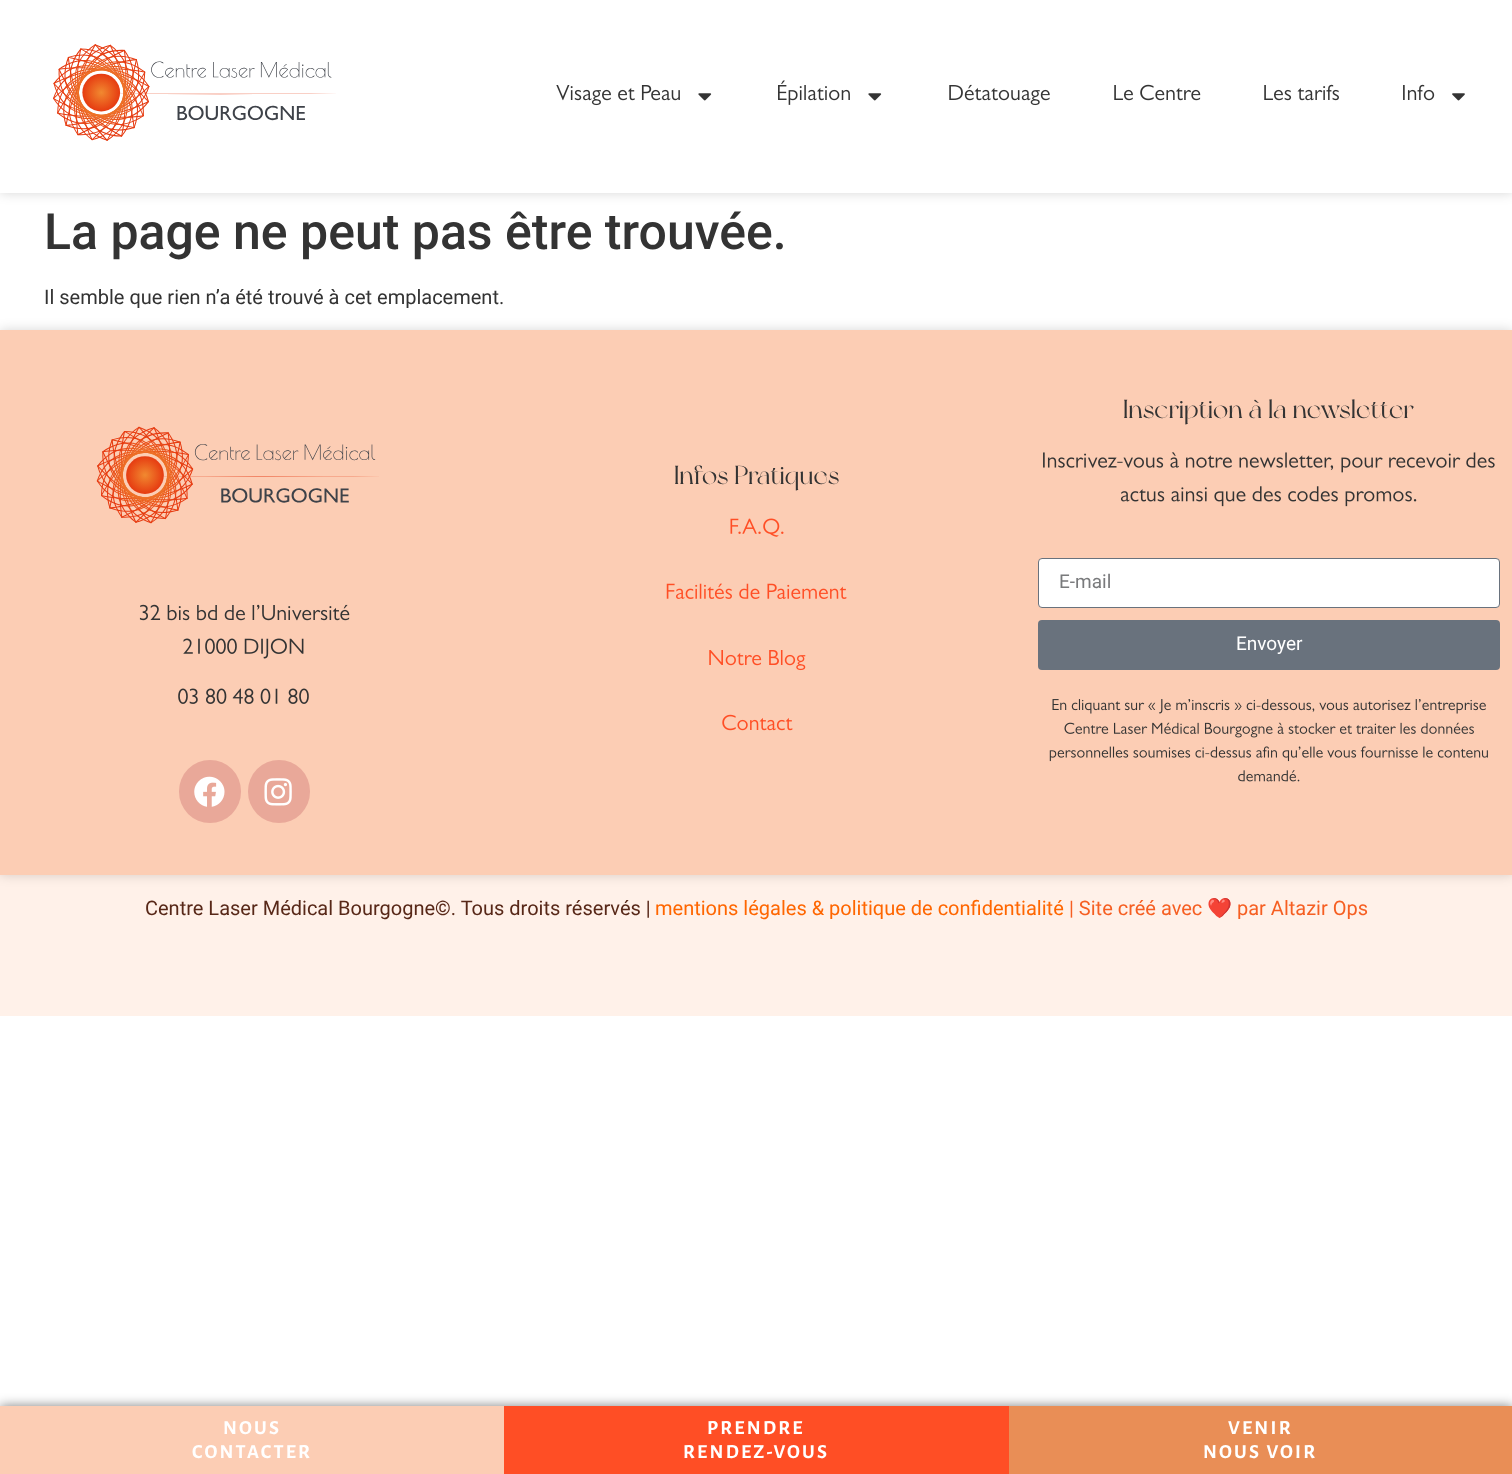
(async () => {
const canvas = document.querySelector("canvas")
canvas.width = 1512
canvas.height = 1474
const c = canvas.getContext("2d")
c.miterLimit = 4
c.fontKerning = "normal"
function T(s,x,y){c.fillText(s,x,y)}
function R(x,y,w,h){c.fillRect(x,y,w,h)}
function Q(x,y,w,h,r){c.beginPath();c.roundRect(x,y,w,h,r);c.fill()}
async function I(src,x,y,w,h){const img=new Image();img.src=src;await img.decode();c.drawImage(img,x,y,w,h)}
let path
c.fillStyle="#fff"
R(0,0,1512,1474)
c.font="500 50px Roboto"
c.fillStyle="#333"
T("La page ne peut pas être trouvée.",44,249)
c.font="20px Roboto"
T("Il semble que rien n’a été trouvé à cet emplacement.",44,304)
c.fillStyle="#fff1e9"
R(0,875,1512,141)
c.fillStyle="#00000029"
c.filter="blur(6px)"
c.beginPath()
c.rect(0,330,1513,545)
c.fill()
c.filter="none"
c.fillStyle="#fccdb4"
R(0,330,1512,545)
await I("1.png",96,426,283,98)
await I("2.png",139,604,211,17)
await I("3.png",183,638,121,21)
await I("4.png",178,688,131,16)
c.fillStyle="#e9a899"
Q(179,760,62,63,31)
await I("5.png",194,776,31,31)
Q(248,760,62,63,31)
await I("6.png",264,778,28,28)
c.font="26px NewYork"
c.fillStyle="#333"
T("Infos Pratiques",674,484)
await I("7.png",730,518,54,19)
await I("8.png",666,583,181,16)
await I("9.png",709,650,97,21)
await I("10.png",722,714,71,17)
T("Inscription à la newsletter",1123,418)
await I("11.png",1043,452,452,21)
await I("12.png",1120,486,297,21)
c.fillStyle="#fff"
c.beginPath()
c.roundRect(1038.5,558.5,461,49,3.5)
c.fill()
c.strokeStyle="#69727d"
c.stroke()
c.font="19px Roboto"
c.fillStyle="#797a7c"
T("E-mail",1059,588)
c.fillStyle="#69727d"
Q(1038,620,462,50,4)
c.fillStyle="#fff"
T("Envoyer",1236,650)
await I("13.png",1052,699,434,15)
await I("14.png",1064,722,410,16)
await I("15.png",1049,746,439,16)
await I("16.png",1238,770,62,12)
c.font="20px Roboto"
c.fillStyle="#582818"
T("Centre Laser Médical Bourgogne©. Tous droits réservés |",145,915)
c.fillStyle="#f60"
T("mentions légales & politique de confidentialité",655,915)
c.fillStyle="#f65f22"
T("| Site créé avec",1069,915)
c.font="20px Noto Color Emoji"
T("❤",1207,915)
c.font="20px Roboto"
T("par Altazir Ops",1237,915)
c.save()
path = new Path2D("M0 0h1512v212h-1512zm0 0h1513v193h-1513z")
c.clip(path,"evenodd")
c.fillStyle="#00000029"
c.filter="blur(6px)"
c.beginPath()
c.rect(0,0,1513,193)
c.fill()
c.filter="none"
c.restore()
await I("17.png",53,44,283,97)
await I("18.png",556,85,124,21)
await I("19.png",698,93,14,8)
await I("20.png",778,80,72,25)
await I("19.png",868,93,14,8)
await I("21.png",949,84,101,22)
await I("22.png",1114,84,87,17)
await I("23.png",1264,84,75,17)
await I("24.png",1403,84,32,17)
await I("25.png",1452,93,13,8)
c.fillStyle="#00000080"
c.filter="blur(6px)"
c.beginPath()
c.rect(0,1406,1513,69)
c.fill()
c.filter="none"
c.fillStyle="#fccdb4"
R(0,1406,504,68)
c.letterSpacing="2.25px"
c.font="bold 20px Alegreya Sans"
c.fillStyle="#fff"
T("NOUS",223,1434)
T("CONTACTER",192,1458)
c.fillStyle="#ff4e25"
R(504,1406,505,68)
c.fillStyle="#fff"
T("PRENDRE",707,1434)
T("RENDEZ-VOUS",683,1458)
c.fillStyle="#e98e56"
R(1009,1406,503,68)
c.fillStyle="#fff"
T("VENIR",1228,1434)
T("NOUS VOIR",1203,1458)
})()
